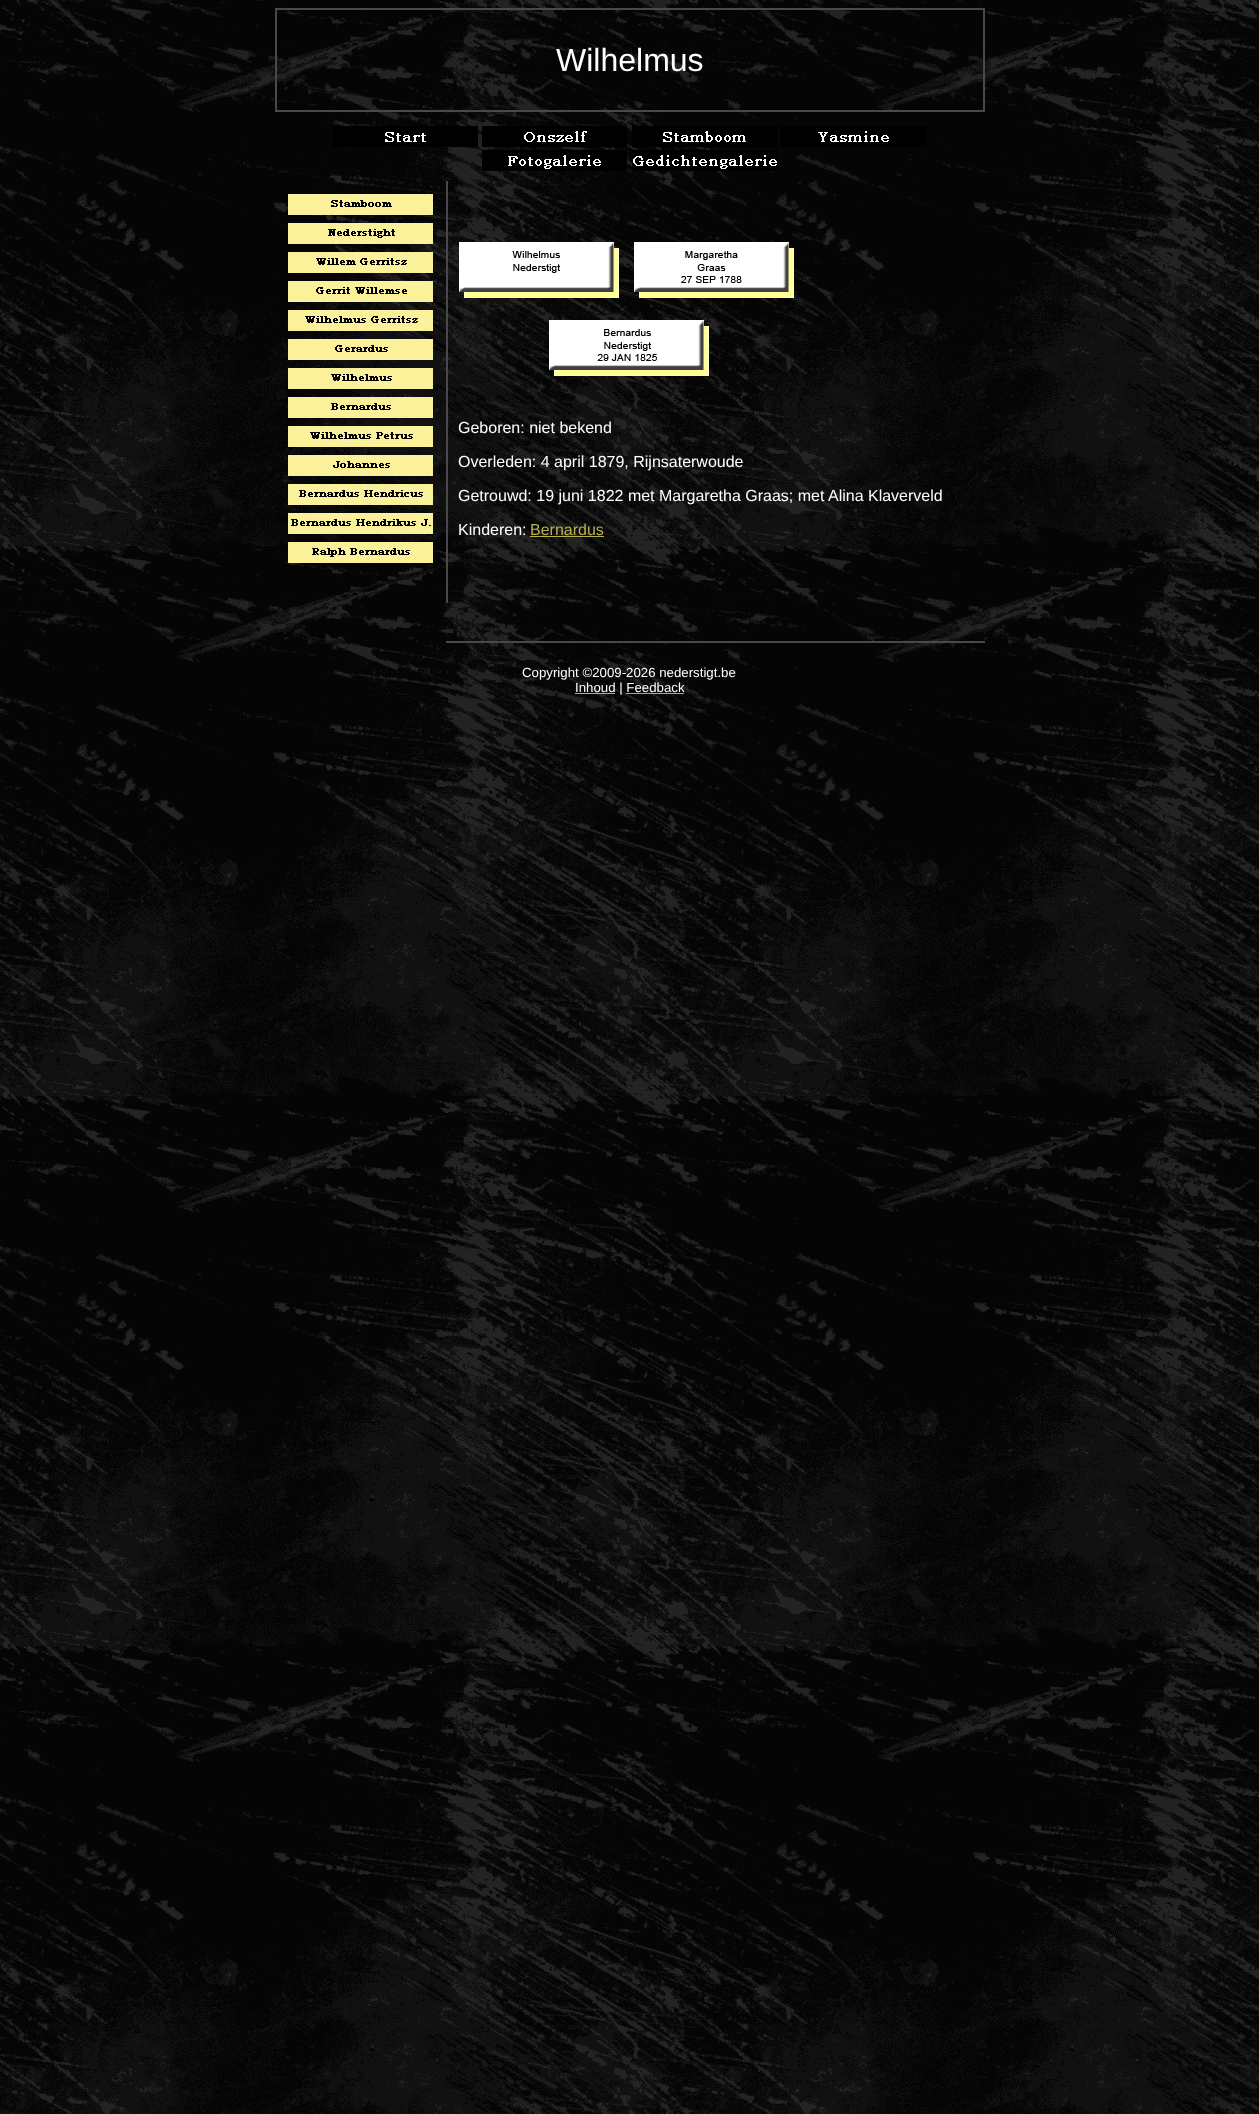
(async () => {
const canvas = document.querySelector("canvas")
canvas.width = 1259
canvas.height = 2114
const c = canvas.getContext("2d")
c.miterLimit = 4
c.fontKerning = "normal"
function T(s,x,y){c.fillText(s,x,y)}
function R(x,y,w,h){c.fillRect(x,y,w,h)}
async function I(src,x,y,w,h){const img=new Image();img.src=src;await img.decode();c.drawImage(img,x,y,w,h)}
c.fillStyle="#fff"
R(0,0,1259,2114)
await I("1.png",0,0,1259,2114)
c.strokeStyle="#494949"
c.lineWidth=2
c.strokeRect(276,9,708,102)
c.font="32px Liberation Sans"
T("Wilhelmus",556,71)
await I("2.png",333,126,145,21)
await I("3.png",482,126,145,21)
await I("4.png",632,126,145,21)
await I("5.png",781,126,145,21)
await I("6.png",482,150,145,21)
await I("7.png",632,150,145,21)
await I("8.png",288,194,145,21)
await I("9.png",288,223,145,21)
await I("10.png",288,252,145,21)
await I("11.png",288,281,145,21)
await I("12.png",288,310,145,21)
await I("13.png",288,339,145,21)
await I("14.png",288,368,145,21)
await I("15.png",288,397,145,21)
await I("16.png",288,426,145,21)
await I("17.png",288,455,145,21)
await I("18.png",288,484,145,21)
await I("19.png",288,513,145,21)
await I("20.png",288,542,145,21)
c.fillStyle="#494949"
R(446,181,2,422)
await I("21.png",459,242,335,134)
c.font="16px Liberation Sans"
c.fillStyle="#fff"
T("Geboren: niet bekend",458,433)
T("Overleden: 4 april 1879, Rijnsaterwoude",458,467)
T("Getrouwd: 19 juni 1822 met Margaretha Graas; met Alina Klaverveld",458,501)
T("Kinderen:",458,535)
c.fillStyle="#b6b04d"
T("Bernardus",530,535)
R(530,536,74,1)
c.fillStyle="#494949"
R(446,641,539,2)
c.font="13.25px Liberation Sans"
c.fillStyle="#fff"
T("Copyright ©2009-2026 nederstigt.be",522,677)
c.fillStyle="#b6b04d"
R(575,693,40,1)
c.fillStyle="#fff"
T("Inhoud | Feedback",575,692)
c.fillStyle="#b6b04d"
R(626,693,58,1)
})()
